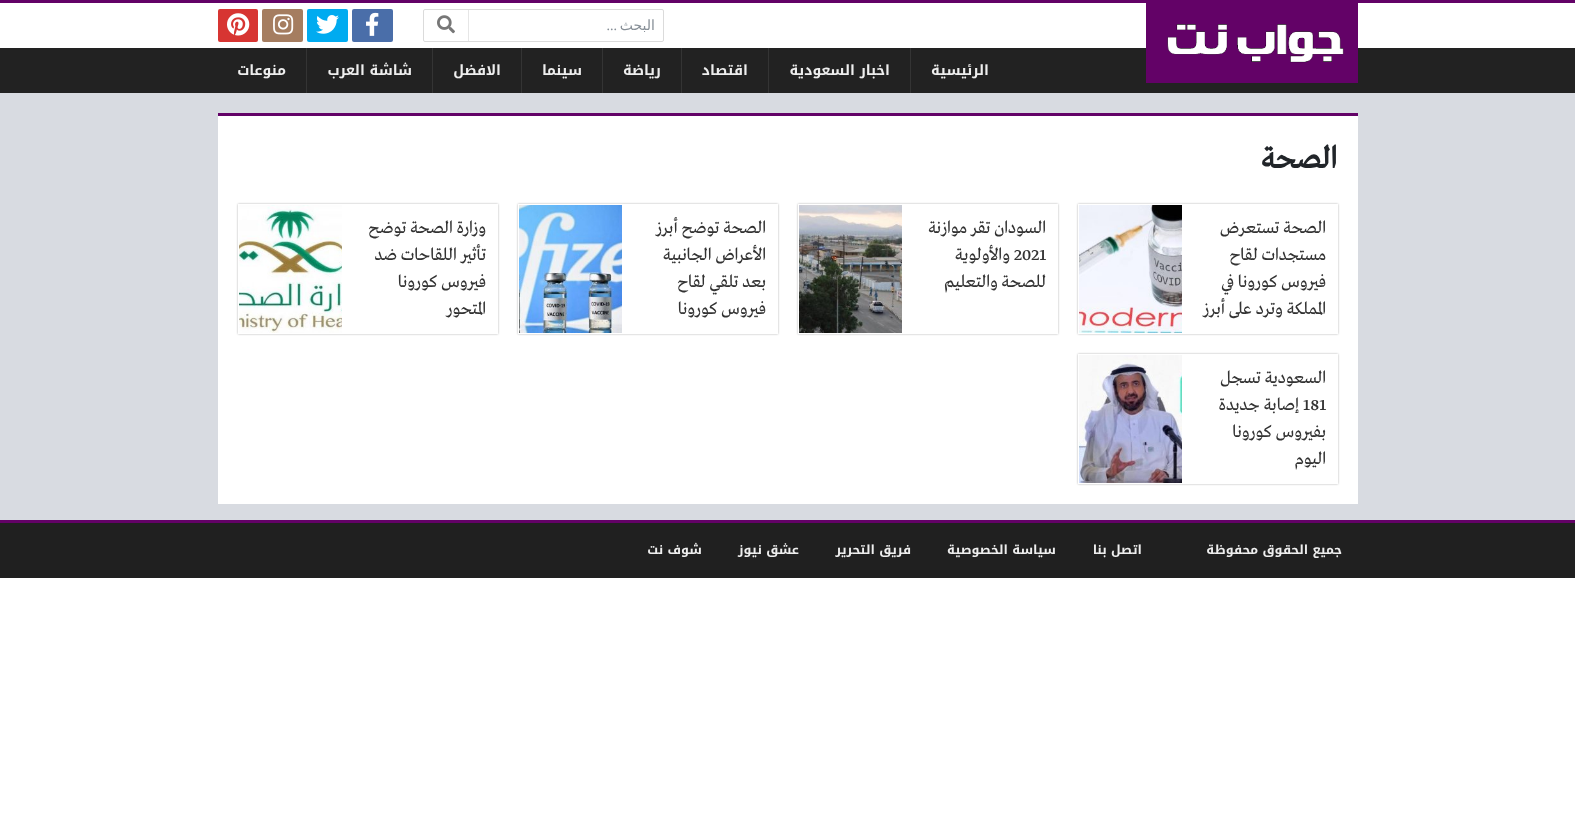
(async () => {
const canvas = document.querySelector("canvas")
canvas.width = 1575
canvas.height = 828
const c = canvas.getContext("2d")
c.miterLimit = 4
c.fontKerning = "normal"
function T(s,x,y){c.fillText(s,x,y)}
function R(x,y,w,h){c.fillRect(x,y,w,h)}
function Q(x,y,w,h,r){c.beginPath();c.roundRect(x,y,w,h,r);c.fill()}
async function I(src,x,y,w,h){const img=new Image();img.src=src;await img.decode();c.drawImage(img,x,y,w,h)}
let path
c.fillStyle="#fff"
R(0,0,1575,828)
c.fillStyle="#d8dbe1"
R(0,93,1575,427)
c.fillStyle="#222"
R(0,48,1575,45)
c.fillStyle="#630267"
R(0,0,1575,3)
c.beginPath()
c.roundRect(423.5,9.5,240,32,1.5)
c.strokeStyle="#dbdbdb"
c.stroke()
c.direction="rtl"
c.font="14px DejaVu Sans"
c.fillStyle="#868e96"
T("البحث",655,30)
c.font="14px Liberation Serif"
T("...",617,30)
c.fillStyle="#e6e6e6"
R(468,10,1,31)
await I("1.png",437,15,18,19)
c.fillStyle="#4a6ea9"
Q(352,9,41,33,2)
await I("2.png",366,12,13,24)
c.fillStyle="#00abf0"
Q(307,9,41,33,2)
await I("3.png",316,15,23,19)
c.fillStyle="#a57d60"
Q(262,9,41,33,2)
await I("4.png",273,14,21,21)
c.fillStyle="#d73532"
Q(218,9,40,33,2)
await I("5.png",227,13,23,23)
c.fillStyle="#630267"
R(1146,3,212,80)
await I("6.png",1167,24,177,39)
c.fillStyle="#343434"
R(910,48,1,45)
c.font="bold 14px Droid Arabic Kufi"
c.fillStyle="#eee"
T("الرئيسية",989,75)
c.fillStyle="#343434"
R(768,48,1,45)
c.fillStyle="#eee"
T("اخبار السعودية",890,75)
c.fillStyle="#343434"
R(681,48,1,45)
c.fillStyle="#eee"
T("اقتصاد",748,75)
c.fillStyle="#343434"
R(602,48,1,45)
c.fillStyle="#eee"
T("رياضة",661,75)
c.fillStyle="#343434"
R(521,48,1,45)
c.fillStyle="#eee"
T("سينما",582,75)
c.fillStyle="#343434"
R(432,48,1,45)
c.fillStyle="#eee"
T("الافضل",501,75)
c.fillStyle="#343434"
R(306,48,1,45)
c.fillStyle="#eee"
T("شاشة العرب",412,75)
T("منوعات",286,75)
c.fillStyle="#fff"
R(218,116,1140,388)
c.fillStyle="#630267"
R(218,113,1140,3)
c.font="bold 32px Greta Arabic"
c.fillStyle="#212529"
T("الصحة",1337,168)
c.save()
path = new Path2D("M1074 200h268v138h-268zm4 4h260v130h-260z")
c.clip(path,"evenodd")
c.fillStyle="#0000004d"
c.filter="blur(1px)"
c.beginPath()
c.rect(1078,204,260,130)
c.fill()
c.filter="none"
c.restore()
c.font="18px Greta Arabic"
c.fillStyle="#333"
T("الصحة تستعرض",1326,233)
T("مستجدات لقاح",1326,260)
T("فيروس كورونا في",1326,287)
T("المملكة وترد على أبرز",1326,314)
await I("7.png",1079,205,103,128)
c.save()
path = new Path2D("M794 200h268v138h-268zm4 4h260v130h-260z")
c.clip(path,"evenodd")
c.fillStyle="#0000004d"
c.filter="blur(1px)"
c.beginPath()
c.rect(798,204,260,130)
c.fill()
c.filter="none"
c.restore()
T("السودان تقر موازنة",1046,233)
c.direction="ltr"
T("2021",1014,260)
c.direction="rtl"
T("والأولوية",1010,260)
T("للصحة والتعليم",1046,287)
await I("8.png",799,205,103,128)
c.save()
path = new Path2D("M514 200h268v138h-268zm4 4h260v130h-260z")
c.clip(path,"evenodd")
c.fillStyle="#0000004d"
c.filter="blur(1px)"
c.beginPath()
c.rect(518,204,260,130)
c.fill()
c.filter="none"
c.restore()
T("الصحة توضح أبرز",766,233)
T("الأعراض الجانبية",766,260)
T("بعد تلقي لقاح",766,287)
T("فيروس كورونا",766,314)
await I("9.png",519,205,103,128)
c.save()
path = new Path2D("M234 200h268v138h-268zm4 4h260v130h-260z")
c.clip(path,"evenodd")
c.fillStyle="#0000004d"
c.filter="blur(1px)"
c.beginPath()
c.rect(238,204,260,130)
c.fill()
c.filter="none"
c.restore()
T("وزارة الصحة توضح",486,233)
T("تأثير اللقاحات ضد",486,260)
T("فيروس كورونا",486,287)
T("المتحور",486,314)
await I("10.png",239,205,103,128)
c.save()
path = new Path2D("M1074 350h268v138h-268zm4 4h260v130h-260z")
c.clip(path,"evenodd")
c.fillStyle="#0000004d"
c.filter="blur(1px)"
c.beginPath()
c.rect(1078,354,260,130)
c.fill()
c.filter="none"
c.restore()
T("السعودية تسجل",1326,383)
c.direction="ltr"
T("181",1303,410)
c.direction="rtl"
T("إصابة جديدة",1299,410)
T("بفيروس كورونا",1326,437)
T("اليوم",1326,464)
await I("11.png",1079,355,103,128)
c.fillStyle="#202020"
R(0,523,1575,55)
c.fillStyle="#630267"
R(0,520,1575,3)
c.font="bold 12.6px Droid Arabic Kufi"
c.fillStyle="#eee"
T("جميع الحقوق محفوظة",1342,554)
T("اتصل بنا",1142,554)
T("سياسة الخصوصية",1056,554)
T("فريق التحرير",911,554)
T("عشق نيوز",799,554)
T("شوف نت",702,554)
})()
